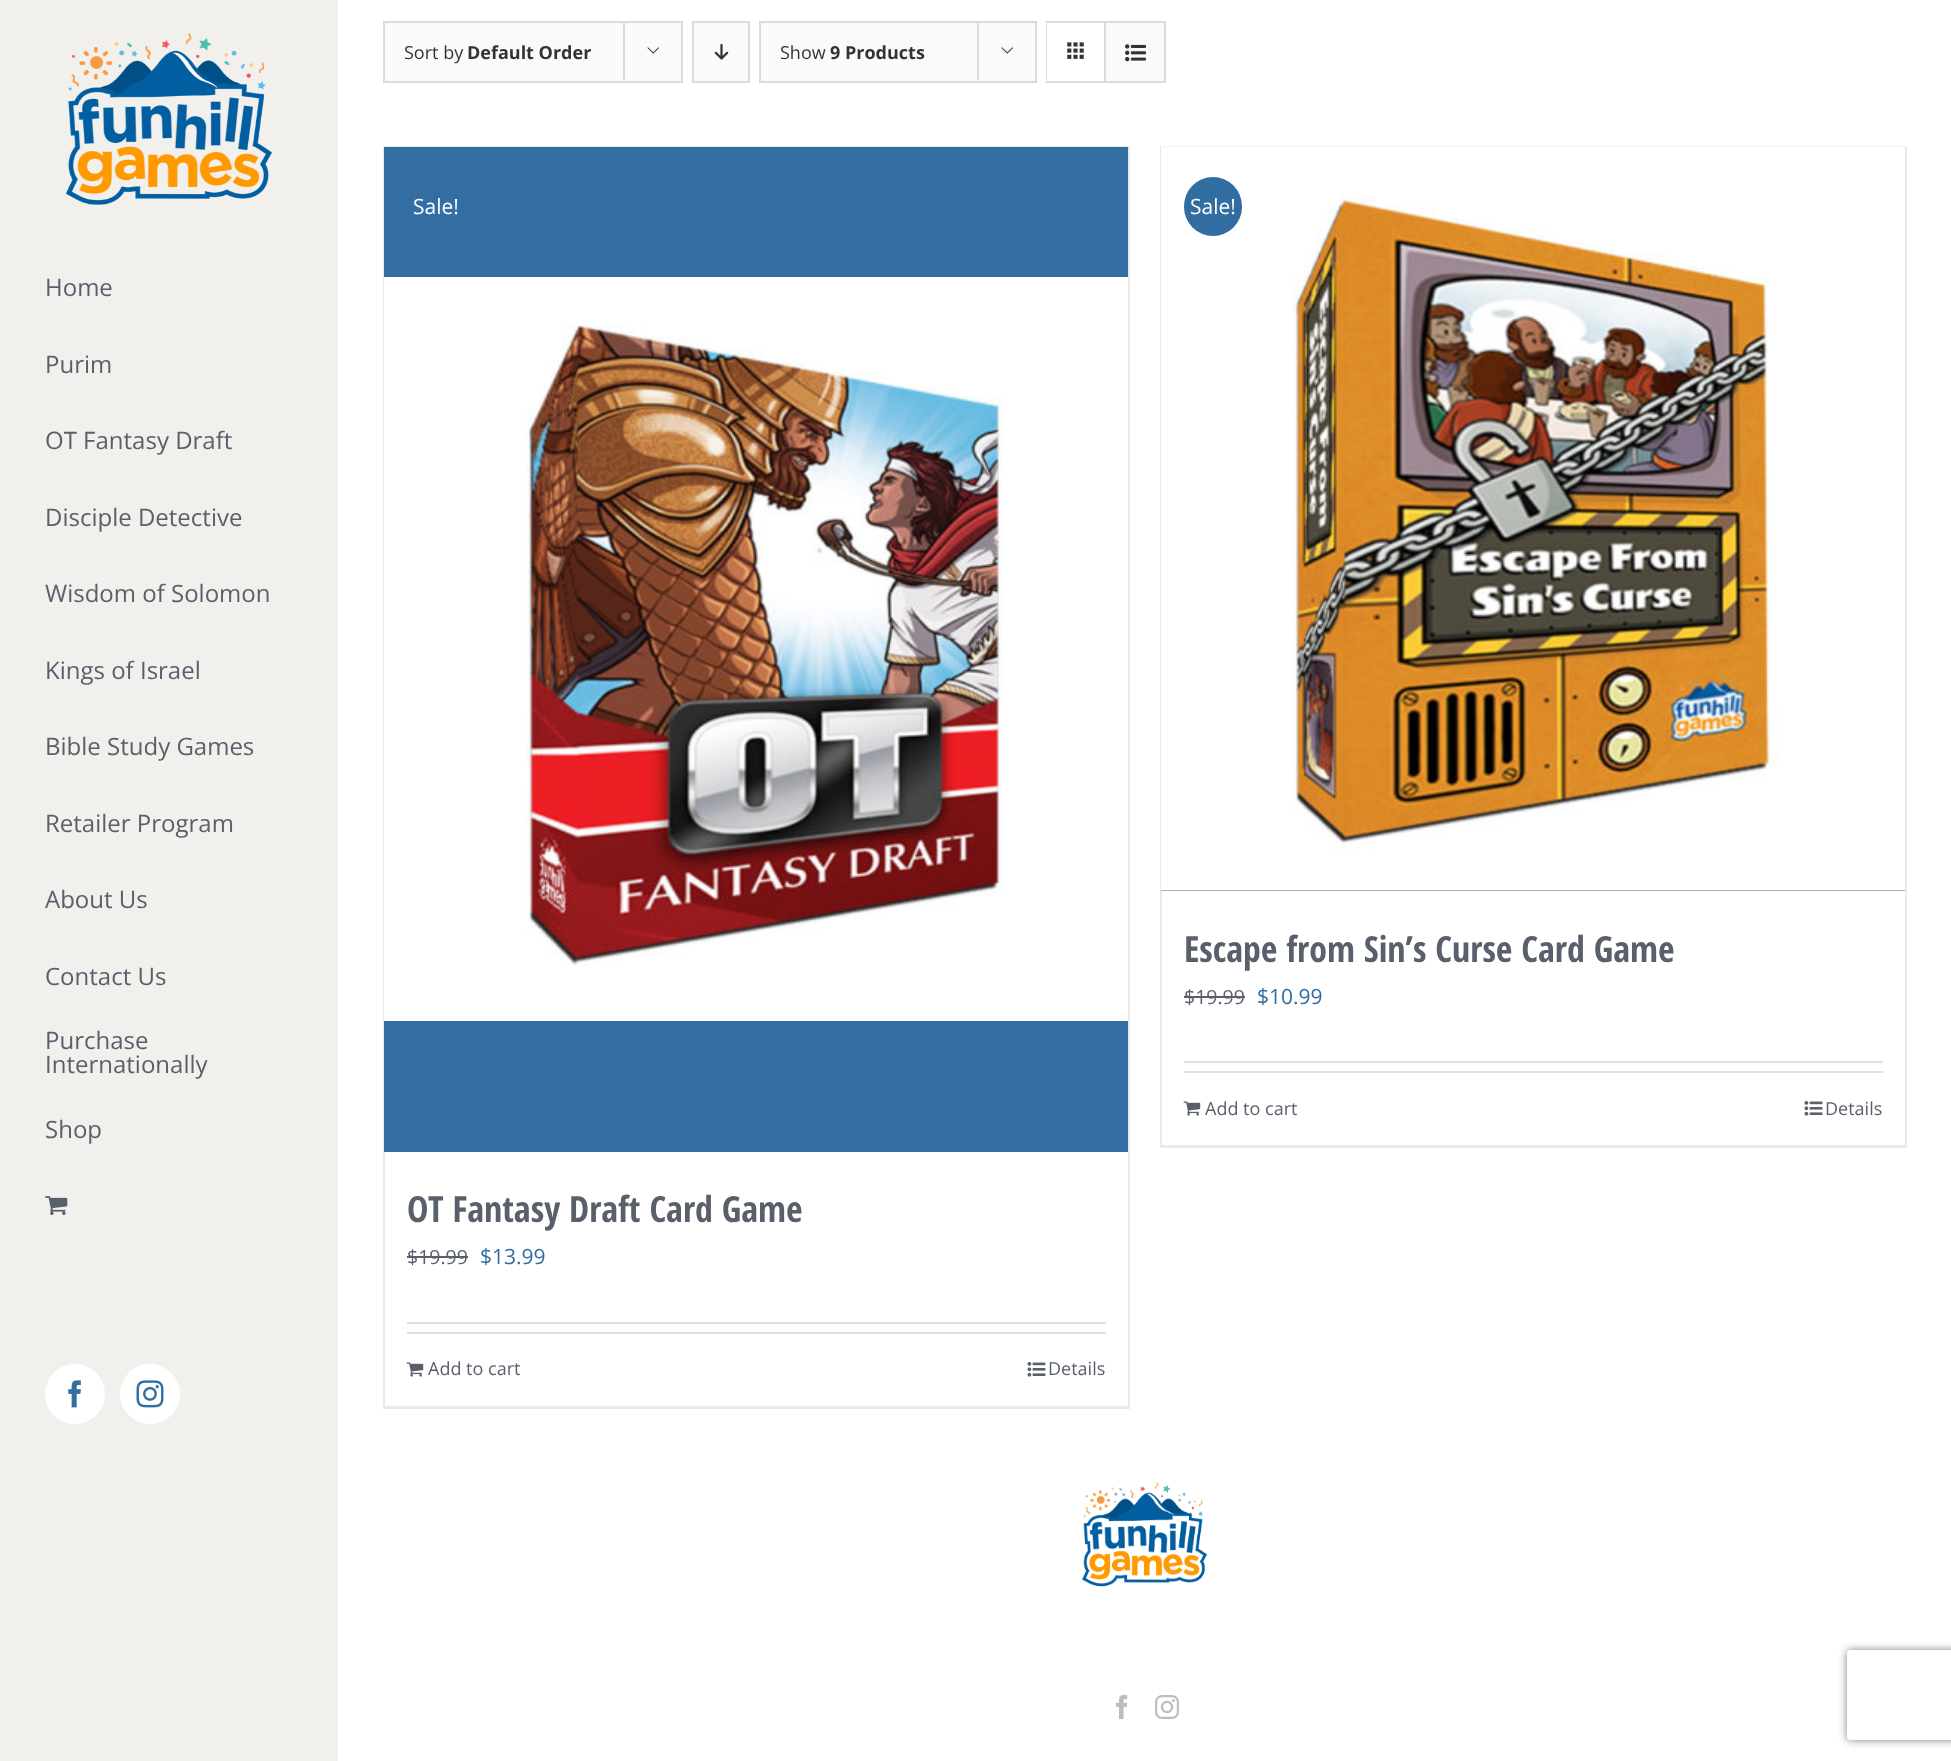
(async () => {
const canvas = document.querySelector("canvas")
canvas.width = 1951
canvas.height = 1761
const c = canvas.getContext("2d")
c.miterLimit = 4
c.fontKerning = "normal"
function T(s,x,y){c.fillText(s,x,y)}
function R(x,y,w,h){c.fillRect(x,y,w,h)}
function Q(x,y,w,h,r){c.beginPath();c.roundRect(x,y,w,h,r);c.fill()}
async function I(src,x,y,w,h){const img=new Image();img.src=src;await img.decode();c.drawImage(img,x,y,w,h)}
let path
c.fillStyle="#fff"
R(0,0,1951,1761)
c.fillStyle="#f1f0ec"
R(0,0,338,1761)
await I("1.png",66,33,206,172)
c.font="24px Open Sans"
c.fillStyle="#595f6b"
T("Home",45,296)
T("Purim",45,373)
T("OT Fantasy Draft",45,449)
T("Disciple Detective",45,526)
T("Wisdom of Solomon",45,602)
T("Kings of Israel",45,679)
T("Bible Study Games",45,755)
T("Retailer Program",45,832)
T("About Us",45,908)
T("Contact Us",45,985)
T("Purchase",45,1049)
T("Internationally",45,1073)
T("Shop",45,1138)
await I("2.png",45,1196,23,19)
c.fillStyle="#fff"
c.beginPath()
c.arc(75,1394,29,0,7)
c.fill()
c.strokeStyle="#fff"
c.lineWidth=2
c.stroke()
await I("3.png",68,1380,13,28)
c.beginPath()
c.arc(150,1394,29,0,7)
c.fill()
c.stroke()
await I("4.png",136,1380,28,28)
c.fillStyle="#fbfaf9"
c.beginPath()
c.rect(384,22,298,60)
c.fill()
c.strokeStyle="#dbdbdb"
c.stroke()
c.font="18px Open Sans"
c.fillStyle="#333"
T("Sort by",404,59)
c.font="bold 18px Open Sans"
T("Default Order",467,59)
c.fillStyle="#dbdbdb"
R(623,21,2,59)
await I("5.png",647,47,12,7)
c.fillStyle="#fbfaf9"
c.beginPath()
c.rect(693,22,56,60)
c.fill()
c.stroke()
await I("6.png",714,43,15,17)
c.beginPath()
c.rect(760,22,276,60)
c.fill()
c.stroke()
c.font="18px Open Sans"
c.fillStyle="#333"
T("Show",780,59)
c.font="bold 18px Open Sans"
T("9 Products",830,59)
c.fillStyle="#dbdbdb"
R(977,21,2,59)
await I("5.png",1001,47,12,7)
c.strokeRect(1047,22,118,60)
c.fillStyle="#fff"
R(1047,23,1,58)
c.fillStyle="#dbdbdb"
R(1104,23,2,58)
await I("7.png",1067,42,17,17)
c.fillStyle="#fbfaf9"
R(1106,23,58,58)
await I("8.png",1125,44,21,18)
c.fillStyle="#ebeaea"
R(383,146,747,1)
R(1128,146,2,1263)
R(383,1406,747,3)
R(383,146,2,1263)
c.fillStyle="#326ea2"
R(384,147,744,1005)
await I("9.png",384,277,744,744)
c.font="21px Open Sans"
c.fillStyle="#fff"
T("Sale!",413,214)
c.font="bold 36px Open Sans Condensed"
c.fillStyle="#595f6b"
T("OT Fantasy Draft Card Game",407,1222)
c.font="19.5px Open Sans"
T("$19.99",407,1264)
R(407,1256,61,2)
c.font="21px Open Sans"
c.fillStyle="#316da1"
T("$13.99",480,1264)
c.fillStyle="#e0dede"
R(407,1322,699,2)
R(407,1332,699,2)
await I("10.png",406,1362,18,15)
c.font="18px Open Sans"
c.fillStyle="#595f6b"
T("Add to cart",428,1375)
await I("11.png",1027,1362,19,15)
T("Details",1048,1375)
c.fillStyle="#ebeaea"
R(1160,146,747,1)
R(1905,146,2,1002)
R(1160,1145,747,3)
R(1160,146,2,1002)
c.fillStyle="#326ea2"
R(1161,890,744,1)
await I("12.png",1161,146,744,745)
c.fillStyle="#316da1"
Q(1184,177,58,59,29)
c.font="21px Open Sans"
c.fillStyle="#fff"
T("Sale!",1190,214)
c.font="bold 36px Open Sans Condensed"
c.fillStyle="#595f6b"
T("Escape from Sin’s Curse Card Game",1184,962)
c.font="19.5px Open Sans"
T("$19.99",1184,1004)
R(1184,996,61,2)
c.font="21px Open Sans"
c.fillStyle="#316da1"
T("$10.99",1257,1004)
c.fillStyle="#e0dede"
R(1184,1061,699,2)
R(1184,1071,699,2)
await I("10.png",1183,1101,18,15)
c.font="18px Open Sans"
c.fillStyle="#595f6b"
T("Add to cart",1205,1115)
await I("11.png",1804,1101,19,15)
T("Details",1825,1115)
await I("13.png",1082,1482,126,105)
await I("14.png",1116,1695,12,24)
await I("15.png",1155,1695,24,24)
c.save()
path = new Path2D("M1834 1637h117v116h-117zm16 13h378c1.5 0 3 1.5 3 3v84c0 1.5-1.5 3-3 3h-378c-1.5 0-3-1.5-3-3v-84c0-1.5 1.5-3 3-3z")
c.clip(path,"evenodd")
c.fillStyle="#808080"
c.filter="blur(4px)"
c.beginPath()
c.roundRect(1847,1650,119,90,3)
c.fill()
c.filter="none"
c.restore()
})()
